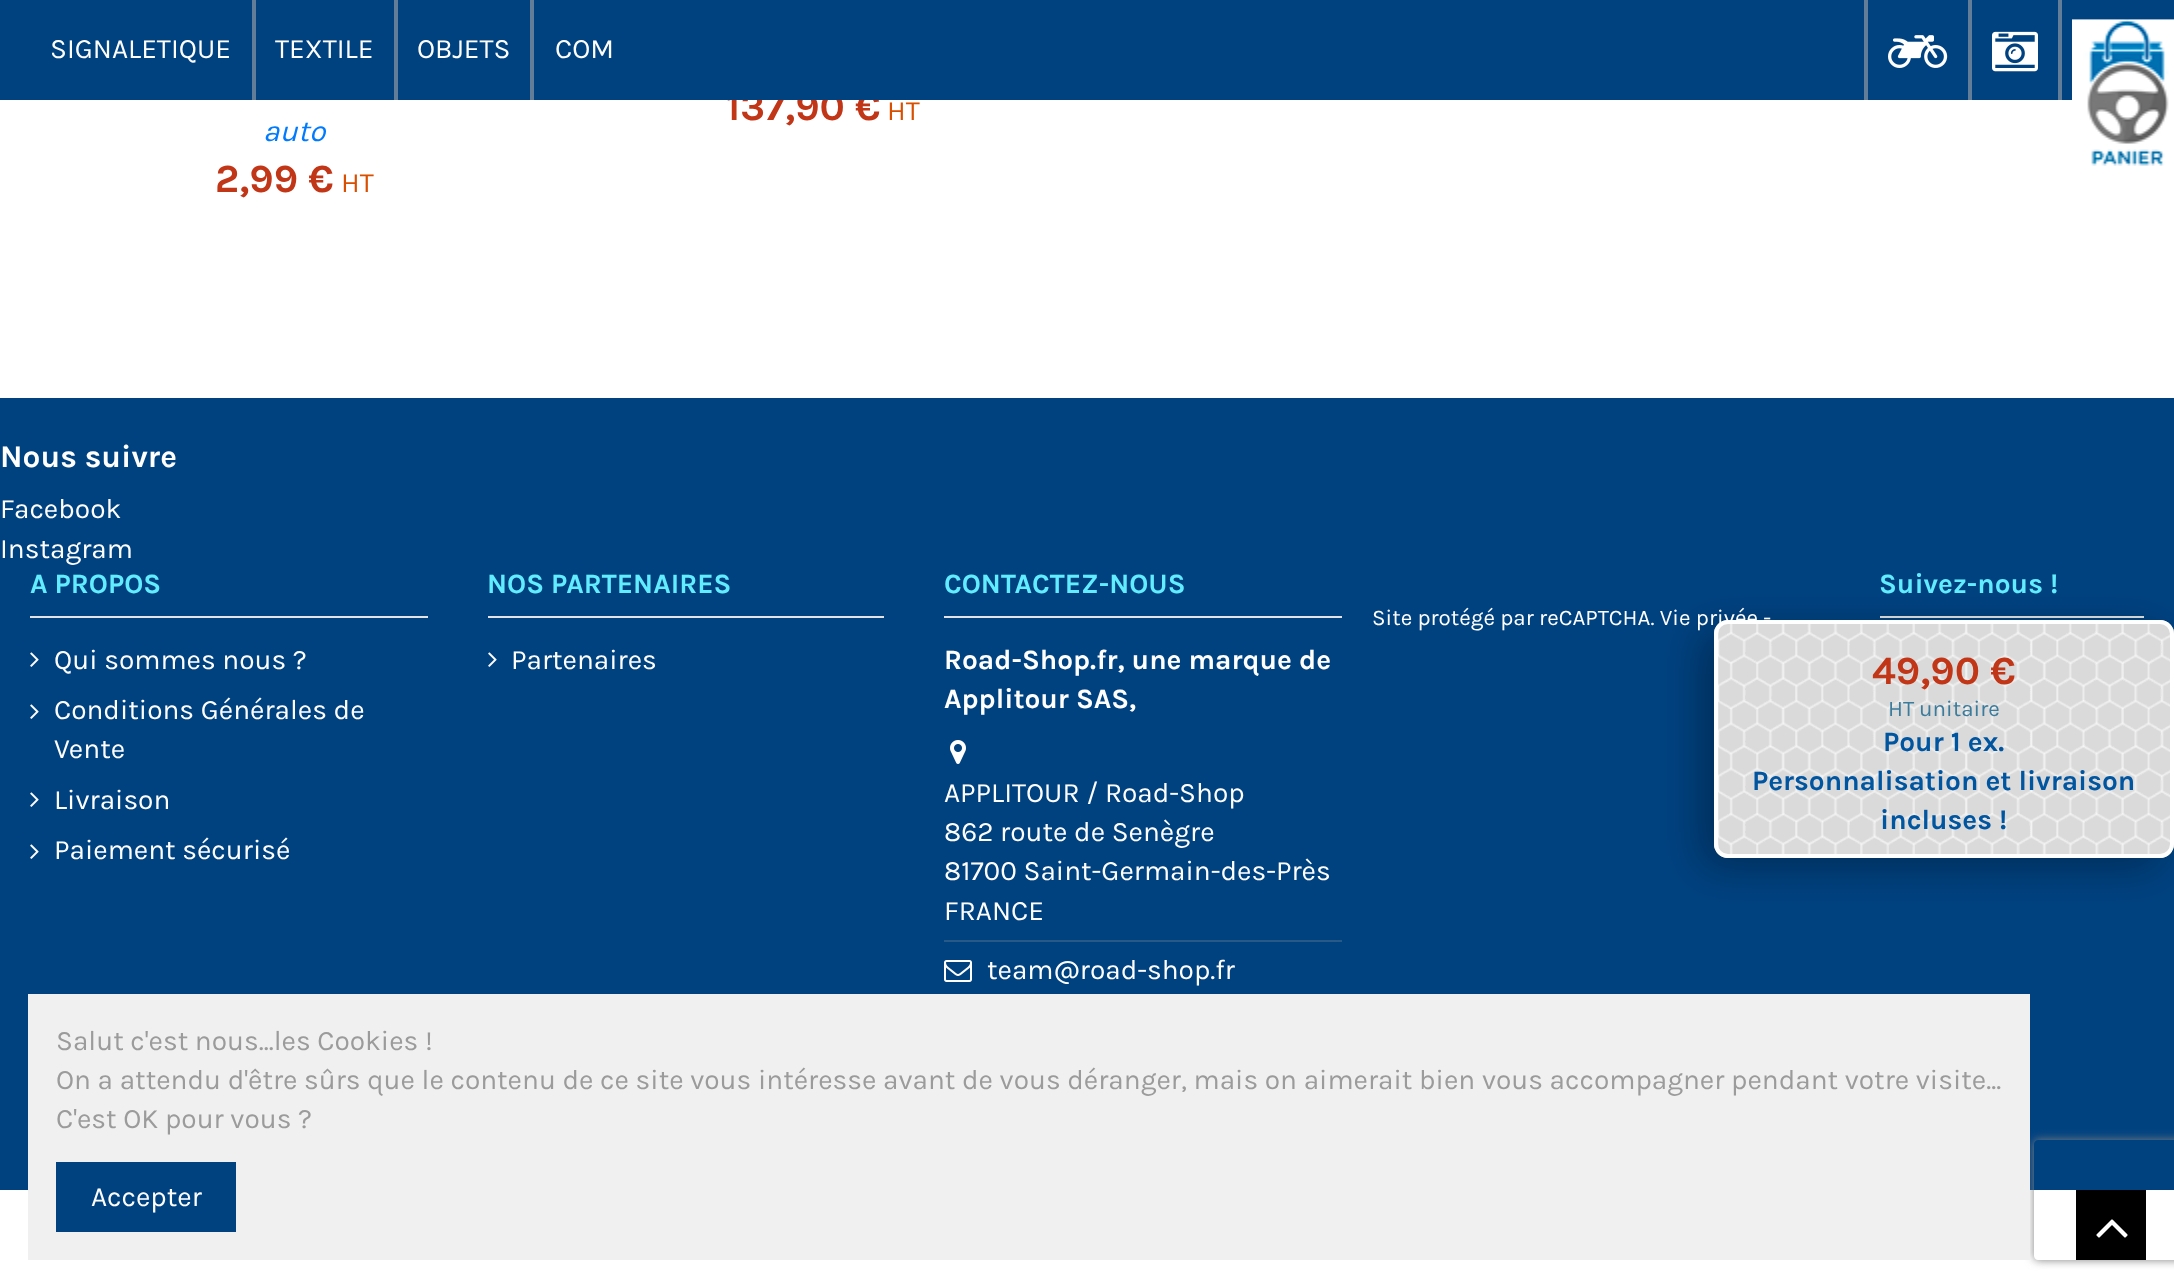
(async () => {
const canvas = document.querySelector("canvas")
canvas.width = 2174
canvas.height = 1287
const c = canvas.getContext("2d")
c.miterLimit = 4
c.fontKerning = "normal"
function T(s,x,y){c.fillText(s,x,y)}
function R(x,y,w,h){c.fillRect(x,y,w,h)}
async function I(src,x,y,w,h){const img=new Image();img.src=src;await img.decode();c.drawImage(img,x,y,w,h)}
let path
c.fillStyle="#fff"
R(0,0,2174,1287)
c.font="bold 40px Karla"
c.fillStyle="#c23618"
T("137,90 €",726,120)
c.fillStyle="#004280"
R(0,0,2174,100)
c.font="28px Karla"
c.fillStyle="#fff"
T("SIGNALETIQUE",50,58)
c.fillStyle="#617d98"
R(252,0,4,100)
c.fillStyle="#fff"
T("TEXTILE",275,58)
c.fillStyle="#617d98"
R(394,0,4,100)
c.fillStyle="#fff"
T("OBJETS",417,58)
c.fillStyle="#617d98"
R(530,0,4,100)
c.fillStyle="#fff"
T("COM",555,58)
c.fillStyle="#617d98"
R(1864,0,4,100)
await I("1.png",1888,35,60,33)
R(1968,0,4,100)
await I("2.png",1992,31,46,41)
R(2058,0,4,100)
await I("3.png",2072,19,102,147)
c.fillStyle="#d84f00"
T("HT",887,120)
c.font="italic 30px Karla"
c.fillStyle="#007bff"
T("auto",263,141)
c.font="bold 40px Karla"
c.fillStyle="#c23618"
T("2,99 €",215,192)
c.font="28px Karla"
c.fillStyle="#d84f00"
T("HT",341,192)
c.fillStyle="#004280"
R(0,398,2174,792)
c.fillStyle="#e3e3e3"
R(1880,616,264,2)
c.fillStyle="#0000004d"
c.filter="blur(20px)"
c.beginPath()
c.roundRect(1700,630,460,238,14)
c.fill()
c.filter="none"
c.font="22.4px Karla"
c.fillStyle="#fff"
T("Site protégé par reCAPTCHA. Vie privée -",1372,625)
await I("4.png",1714,620,460,238)
c.beginPath()
c.roundRect(1716,622,456,234,12)
c.strokeStyle="#fff"
c.lineWidth=4
c.stroke()
c.font="bold 40px Karla"
c.fillStyle="#c23618"
T("49,90 €",1872,684)
c.font="22.4px Karla"
c.fillStyle="#3b7b9b"
T("HT",1888,716)
T("unitaire",1919,716)
c.font="bold 28px Karla"
c.fillStyle="#0055a0"
T("Pour 1 ex.",1883,751)
T("Personnalisation et livraison",1752,790)
T("incluses !",1880,829)
c.font="bold 31.5px Karla"
c.fillStyle="#fff"
T("Nous suivre",0,467)
c.font="28px Karla"
T("Facebook",0,518)
T("Instagram",0,558)
c.fillStyle="#e3e3e3"
R(30,616,398,2)
c.font="bold 28px Karla"
c.fillStyle="#61ecff"
T("A PROPOS",30,593)
await I("5.png",30,652,9,15)
c.font="28px Karla"
c.fillStyle="#fff"
T("Qui sommes nous ?",54,669)
await I("5.png",30,704,9,15)
T("Conditions Générales de",54,719)
T("Vente",54,758)
await I("5.png",30,792,9,15)
T("Livraison",54,809)
await I("5.png",30,844,9,15)
T("Paiement sécurisé",54,859)
c.fillStyle="#e3e3e3"
R(488,616,396,2)
c.font="bold 28px Karla"
c.fillStyle="#61ecff"
T("NOS PARTENAIRES",487,593)
await I("5.png",488,652,9,15)
c.font="28px Karla"
c.fillStyle="#fff"
T("Partenaires",511,669)
c.fillStyle="#e3e3e3"
R(944,616,398,2)
c.font="bold 28px Karla"
c.fillStyle="#61ecff"
T("CONTACTEZ-NOUS",944,593)
c.fillStyle="#fff"
T("Road-Shop.fr, une marque de",944,669)
T("Applitour SAS,",944,708)
await I("6.png",950,740,16,24)
c.font="28px Karla"
T("APPLITOUR / Road-Shop",944,802)
T("862 route de Senègre",944,841)
T("81700 Saint-Germain-des-Près",944,880)
T("FRANCE",944,920)
c.fillStyle="#285a88"
R(944,940,398,2)
await I("7.png",944,960,28,22)
c.fillStyle="#fff"
T("team@road-shop.fr",987,979)
c.font="bold 28px Karla"
c.fillStyle="#61ecff"
T("Suivez-nous !",1879,593)
c.fillStyle="#000"
R(2076,1190,70,70)
await I("8.png",2096,1219,32,19)
c.save()
path = new Path2D("M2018 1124h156v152h-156zm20 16h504c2 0 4 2 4 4v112c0 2-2 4-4 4h-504c-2 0-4-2-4-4v-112c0-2 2-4 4-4z")
c.clip(path,"evenodd")
c.fillStyle="#808080"
c.filter="blur(5px)"
c.beginPath()
c.roundRect(2034,1140,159,120,4)
c.fill()
c.filter="none"
c.restore()
c.fillStyle="#f0f0f0"
R(28,994,2002,266)
c.font="28px Karla"
c.fillStyle="#9b9b9b"
T("Salut c'est nous...les Cookies !",56,1050)
T("On a attendu d'être sûrs que le contenu de ce site vous intéresse avant de vous déranger, mais on aimerait bien vous accompagner pendant votre visite...",56,1089)
T("C'est OK pour vous ?",56,1128)
c.fillStyle="#004280"
R(56,1162,180,70)
c.fillStyle="#fff"
T("Accepter",91,1206)
})()
